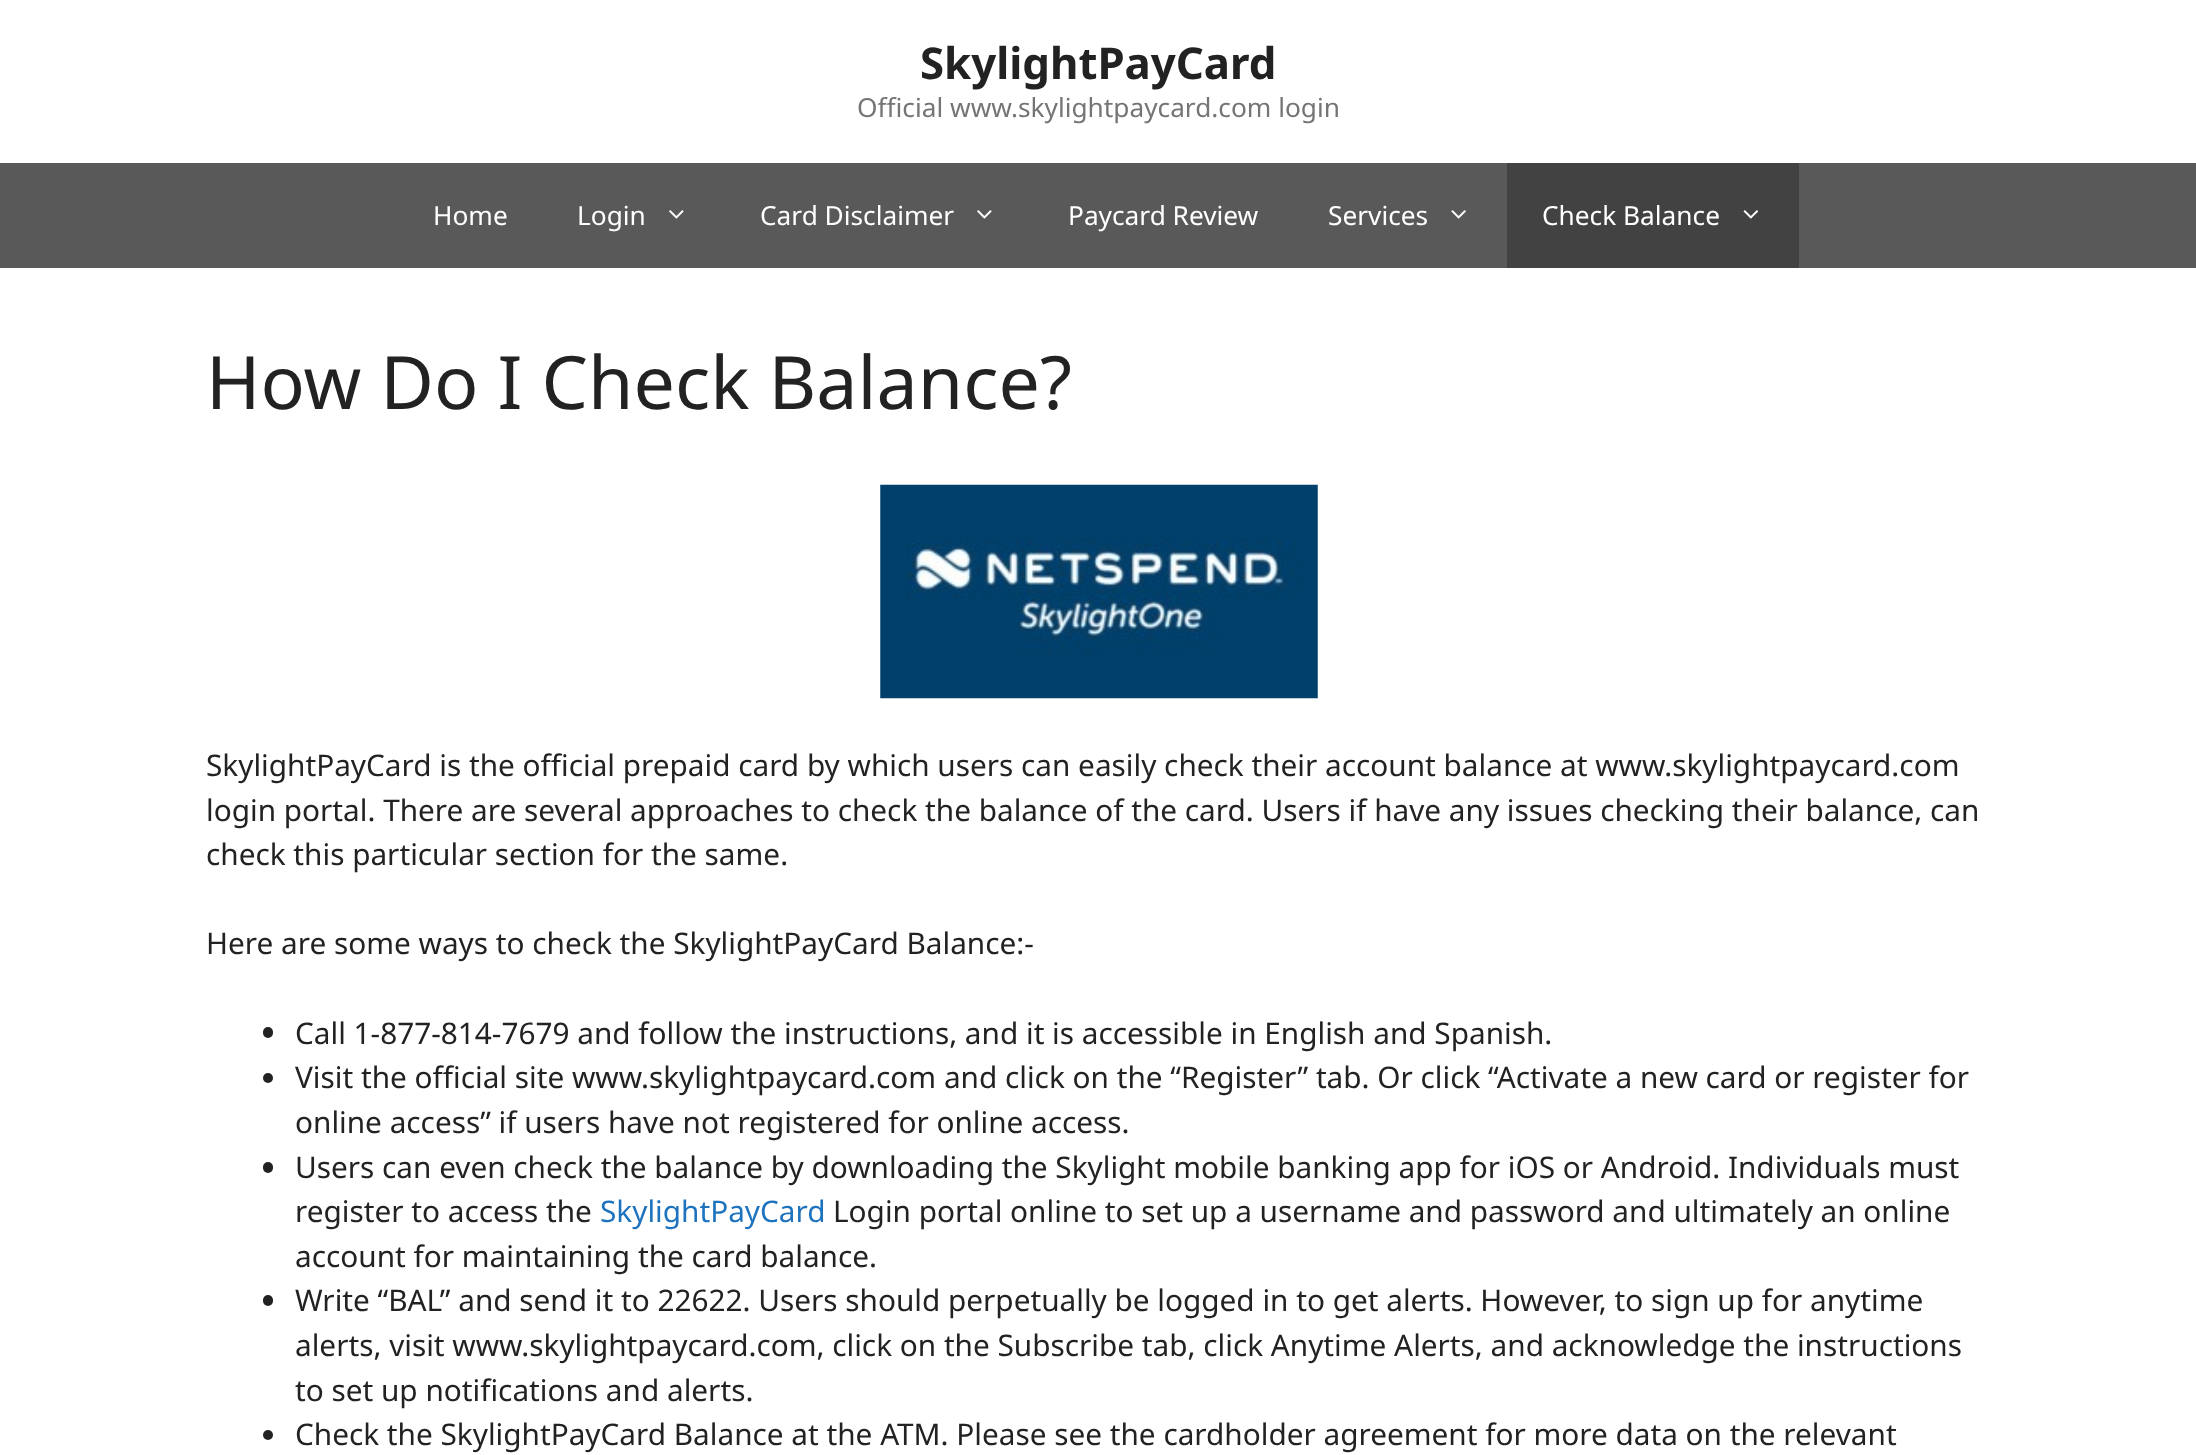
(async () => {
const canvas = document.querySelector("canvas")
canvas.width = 2196
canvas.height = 1455
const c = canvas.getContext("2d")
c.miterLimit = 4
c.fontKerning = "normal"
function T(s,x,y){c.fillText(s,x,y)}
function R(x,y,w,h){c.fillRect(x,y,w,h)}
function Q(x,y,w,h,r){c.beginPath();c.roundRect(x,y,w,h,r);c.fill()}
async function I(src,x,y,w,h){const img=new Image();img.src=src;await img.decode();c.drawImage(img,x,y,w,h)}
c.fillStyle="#fff"
R(0,0,2196,1455)
c.font="bold 43.75px Noto Sans"
c.fillStyle="#222"
T("SkylightPayCard",920,79)
c.font="26.25px Noto Sans"
c.fillStyle="#757575"
T("Official www.skylightpaycard.com login",857,117)
c.fillStyle="#595959"
R(0,163,2196,105)
c.fillStyle="#fff"
T("Home",433,225)
T("Login",577,225)
await I("1.png",669,210,15,9)
T("Card Disclaimer",760,225)
await I("1.png",977,210,15,9)
T("Paycard Review",1068,225)
T("Services",1328,225)
await I("2.png",1451,210,15,9)
c.fillStyle="#424242"
R(1507,163,292,105)
c.fillStyle="#fff"
T("Check Balance",1542,225)
await I("3.png",1743,210,16,9)
c.font="73.5px Noto Sans"
c.fillStyle="#222"
T("How Do I Check Balance?",206,409)
await I("4.png",880,484,438,215)
c.font="29.75px Noto Sans"
T("SkylightPayCard is the official prepaid card by which users can easily check their account balance at www.skylightpaycard.com",206,776)
T("login portal. There are several approaches to check the balance of the card. Users if have any issues checking their balance, can",206,821)
T("check this particular section for the same.",206,865)
T("Here are some ways to check the SkylightPayCard Balance:-",206,954)
Q(263,1027,10,11,5)
T("Call 1-877-814-7679 and follow the instructions, and it is accessible in English and Spanish.",295,1044)
c.beginPath()
c.arc(268,1078,5,0,7)
c.fill()
T("Visit the official site www.skylightpaycard.com and click on the “Register” tab. Or click “Activate a new card or register for",295,1088)
T("online access” if users have not registered for online access.",295,1133)
Q(263,1162,10,11,5)
T("Users can even check the balance by downloading the Skylight mobile banking app for iOS or Android. Individuals must",295,1178)
T("register to access the",295,1222)
c.fillStyle="#1e73be"
T("SkylightPayCard",600,1222)
c.fillStyle="#222"
T("Login portal online to set up a username and password and ultimately an online",833,1222)
T("account for maintaining the card balance.",295,1267)
Q(263,1295,10,11,5)
T("Write “BAL” and send it to 22622. Users should perpetually be logged in to get alerts. However, to sign up for anytime",295,1311)
T("alerts, visit www.skylightpaycard.com, click on the Subscribe tab, click Anytime Alerts, and acknowledge the instructions",295,1356)
T("to set up notifications and alerts.",295,1401)
c.beginPath()
c.arc(268,1435,5,0,7)
c.fill()
T("Check the SkylightPayCard Balance at the ATM. Please see the cardholder agreement for more data on the relevant",295,1445)
})()
